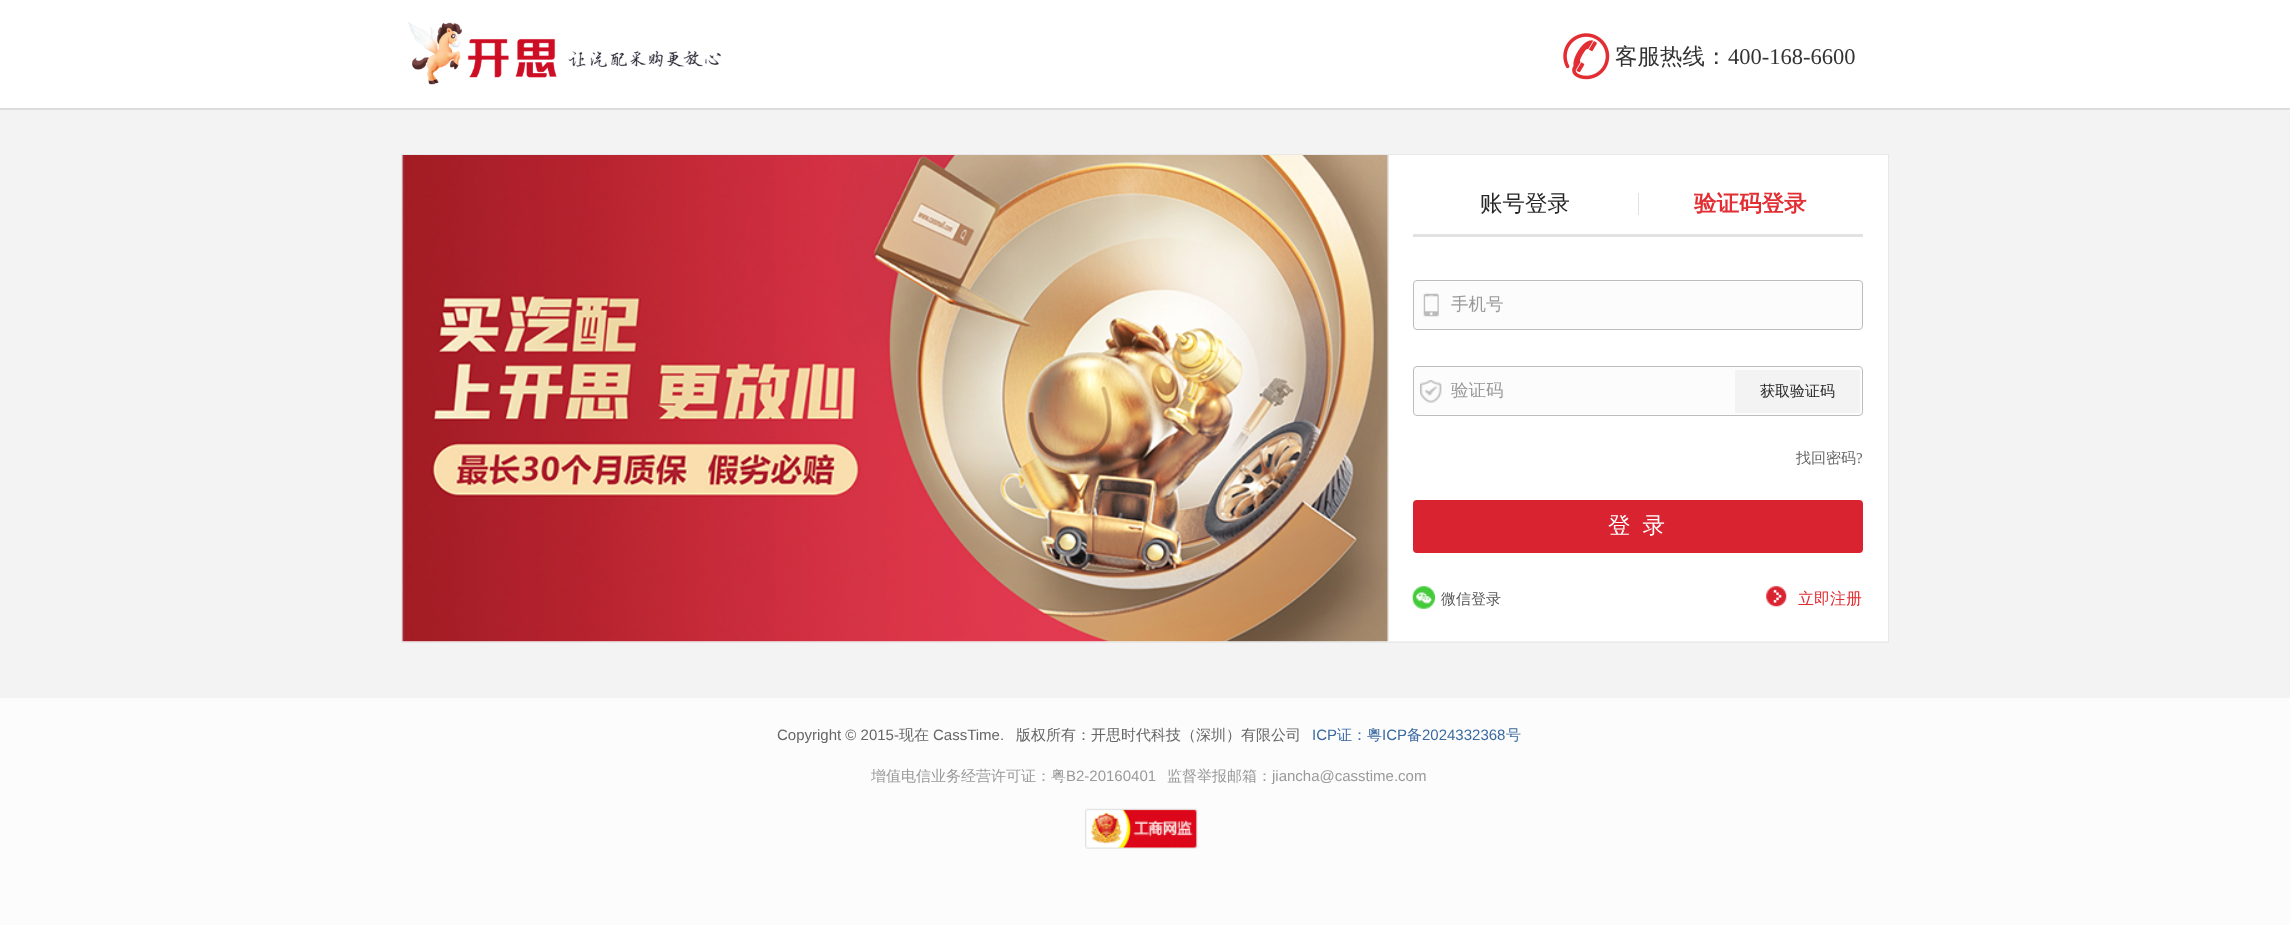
(async () => {
const canvas = document.querySelector("canvas")
canvas.width = 2290
canvas.height = 925
const c = canvas.getContext("2d")
c.miterLimit = 4
c.fontKerning = "normal"
function T(s,x,y){c.fillText(s,x,y)}
function R(x,y,w,h){c.fillRect(x,y,w,h)}
function Q(x,y,w,h,r){c.beginPath();c.roundRect(x,y,w,h,r);c.fill()}
async function I(src,x,y,w,h){const img=new Image();img.src=src;await img.decode();c.drawImage(img,x,y,w,h)}
c.fillStyle="#fcfcfc"
R(0,0,2290,925)
c.fillStyle="#fff"
R(0,0,2290,108)
await I("1.png",408,22,313,63)
await I("2.png",1563,33,47,47)
c.font="500 22.5px WenQuanYi Zen Hei"
c.fillStyle="#333"
T("客服热线：",1615,64)
c.font="22.5px Liberation Serif"
T("400-168-6600",1728,64)
c.fillStyle="#ddd"
R(0,108,2290,2)
c.fillStyle="#f3f3f3"
R(0,110,2290,588)
c.strokeStyle="#e8e8e8"
c.strokeRect(401.5,154.5,1487,488)
await I("3.png",402,155,986,487)
c.fillStyle="#fff"
R(1389,155,499,486)
c.fillStyle="#e6e6e6"
R(1388,155,1,486)
c.fillStyle="#e2e2e2"
R(1413,234,450,3)
c.font="500 22.5px WenQuanYi Zen Hei"
c.fillStyle="#262626"
T("账号登录",1480,211)
c.fillStyle="#e2e2e2"
R(1638,193,1,22)
c.font="bold 22.5px WenQuanYi Zen Hei"
c.fillStyle="#e22e33"
T("验证码登录",1694,211)
c.fillStyle="#fcfcfc"
c.beginPath()
c.roundRect(1413.5,280.5,449,49,3.5)
c.fill()
c.strokeStyle="#bdbdbd"
c.stroke()
await I("4.png",1423,293,16,24)
c.font="500 17.5px WenQuanYi Zen Hei"
c.fillStyle="#999"
T("手机号",1451,310)
c.fillStyle="#fcfcfc"
c.beginPath()
c.roundRect(1413.5,366.5,449,49,3.5)
c.fill()
c.stroke()
await I("5.png",1420,380,22,23)
c.fillStyle="#999"
T("验证码",1451,396)
c.fillStyle="#f3f3f3"
R(1735,370,125,43)
c.font="500 15px WenQuanYi Zen Hei"
c.fillStyle="#262626"
T("获取验证码",1760,396)
c.fillStyle="#666"
T("找回密码",1796,463)
c.font="15px Liberation Serif"
T("?",1856,463)
c.fillStyle="#da2330"
Q(1413,500,450,53,4)
c.letterSpacing="12px"
c.font="500 22.5px WenQuanYi Zen Hei"
c.fillStyle="#fff"
T("登录",1608,533)
await I("6.png",1412,586,23,23)
c.letterSpacing="0px"
c.font="500 15px WenQuanYi Zen Hei"
c.fillStyle="#585858"
T("微信登录",1441,604)
await I("7.png",1766,586,21,21)
c.font="500 16px WenQuanYi Zen Hei"
c.fillStyle="#e22e33"
T("立即注册",1798,604)
c.font="15px Liberation Sans"
c.fillStyle="#666"
T("Copyright © 2015-",777,740)
c.font="500 15px WenQuanYi Zen Hei"
T("现在",899,740)
c.font="15px Liberation Sans"
T("CassTime.",933,740)
c.font="500 15px WenQuanYi Zen Hei"
T("版权所有：开思时代科技（深圳）有限公司",1016,740)
c.font="15px Liberation Sans"
c.fillStyle="#3a699f"
T("ICP",1312,740)
c.font="500 15px WenQuanYi Zen Hei"
T("证：粵",1337,740)
c.font="15px Liberation Sans"
T("ICP",1382,740)
c.font="500 15px WenQuanYi Zen Hei"
T("备",1407,740)
c.font="15px Liberation Sans"
T("2024332368",1422,740)
c.font="500 15px WenQuanYi Zen Hei"
T("号",1506,740)
c.fillStyle="#999"
T("增值电信业务经营许可证：粤",871,781)
c.font="15px Liberation Sans"
T("B2-20160401",1066,781)
c.font="500 15px WenQuanYi Zen Hei"
T("监督举报邮箱：",1167,781)
c.font="15px Liberation Sans"
T("jiancha@casstime.com",1272,781)
await I("8.png",1085,808,113,41)
})()
